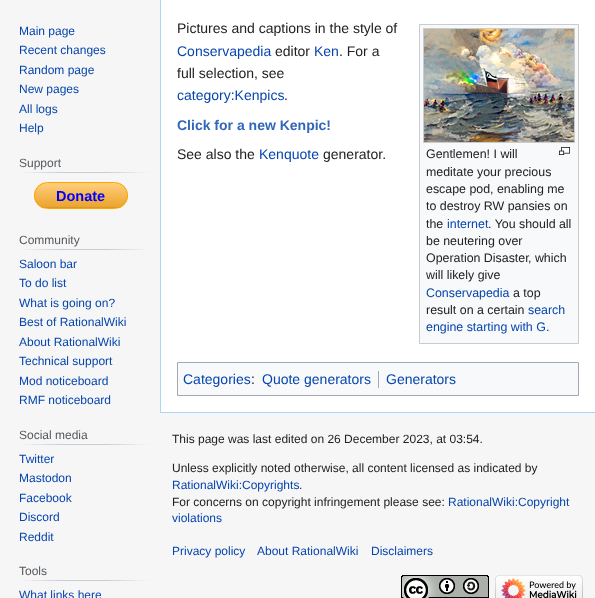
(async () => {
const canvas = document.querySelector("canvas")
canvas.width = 595
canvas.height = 598
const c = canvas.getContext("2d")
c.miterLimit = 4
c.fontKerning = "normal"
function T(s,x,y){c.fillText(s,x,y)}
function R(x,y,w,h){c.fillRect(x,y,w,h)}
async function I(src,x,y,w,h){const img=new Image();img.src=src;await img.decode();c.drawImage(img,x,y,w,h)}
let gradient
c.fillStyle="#f6f6f6"
R(0,0,595,598)
c.font="12px Liberation Sans"
c.fillStyle="#0645ad"
T("Main page",19,35)
T("Recent changes",19,54)
T("Random page",19,74)
T("New pages",19,93)
T("All logs",19,113)
T("Help",19,132)
gradient = c.createLinearGradient(19,173,150,173)
gradient.addColorStop(0,"#f6f6f6")
gradient.addColorStop(.33,"#c8ccd1")
gradient.addColorStop(.66,"#c8ccd1")
gradient.addColorStop(1,"#f6f6f6")
c.fillStyle = gradient
R(19,172,131,1)
c.fillStyle="#54595d"
T("Support",19,167)
c.save()
c.beginPath()
c.roundRect(34,182,94,27,13.5)
c.clip()
gradient = c.createLinearGradient(35,183,35,208)
gradient.addColorStop(0,"#ffdfa8")
gradient.addColorStop(.02,"#ffce7b")
gradient.addColorStop(.97,"#eba42d")
gradient.addColorStop(1,"#b3802b")
c.fillStyle = gradient
R(34,183,94,25)
c.restore()
c.beginPath()
c.roundRect(34.5,182.5,93,26,13)
c.strokeStyle="#ffa500"
c.stroke()
c.font="bold 14.5px Liberation Sans"
c.fillStyle="#00f"
T("Donate",56,201)
gradient = c.createLinearGradient(19,250,150,250)
gradient.addColorStop(0,"#f6f6f6")
gradient.addColorStop(.33,"#c8ccd1")
gradient.addColorStop(.66,"#c8ccd1")
gradient.addColorStop(1,"#f6f6f6")
c.fillStyle = gradient
R(19,249,131,1)
c.font="12px Liberation Sans"
c.fillStyle="#54595d"
T("Community",19,244)
c.fillStyle="#0645ad"
T("Saloon bar",19,268)
T("To do list",19,287)
T("What is going on?",19,307)
T("Best of RationalWiki",19,326)
T("About RationalWiki",19,346)
T("Technical support",19,365)
T("Mod noticeboard",19,385)
T("RMF noticeboard",19,404)
gradient = c.createLinearGradient(19,445,150,445)
gradient.addColorStop(0,"#f6f6f6")
gradient.addColorStop(.33,"#c8ccd1")
gradient.addColorStop(.66,"#c8ccd1")
gradient.addColorStop(1,"#f6f6f6")
c.fillStyle = gradient
R(19,444,131,1)
c.fillStyle="#54595d"
T("Social media",19,439)
c.fillStyle="#0645ad"
T("Twitter",19,463)
T("Mastodon",19,482)
T("Facebook",19,502)
T("Discord",19,521)
T("Reddit",19,541)
gradient = c.createLinearGradient(19,581,150,581)
gradient.addColorStop(0,"#f6f6f6")
gradient.addColorStop(.33,"#c8ccd1")
gradient.addColorStop(.66,"#c8ccd1")
gradient.addColorStop(1,"#f6f6f6")
c.fillStyle = gradient
R(19,580,131,1)
c.fillStyle="#54595d"
T("Tools",19,575)
c.fillStyle="#0645ad"
T("What links here",19,599)
c.fillStyle="#fff"
R(161,0,434,412)
c.fillStyle="#a7d7f9"
R(160,412,435,1)
R(160,0,1,413)
c.font="14px Liberation Sans"
c.fillStyle="#202122"
T("Pictures and captions in the style of",177,33)
c.fillStyle="#0645ad"
T("Conservapedia",177,56)
c.fillStyle="#202122"
T("editor",275,56)
c.fillStyle="#0645ad"
T("Ken",314,56)
c.fillStyle="#202122"
T(". For a",339,56)
T("full selection, see",177,78)
c.fillStyle="#0645ad"
T("category:Kenpics",177,100)
c.fillStyle="#202122"
T(".",284,100)
c.font="bold 14px Liberation Sans"
c.fillStyle="#36b"
T("Click for a new Kenpic!",177,130)
c.font="14px Liberation Sans"
c.fillStyle="#202122"
T("See also the",177,159)
c.fillStyle="#0645ad"
T("Kenquote",259,159)
c.fillStyle="#202122"
T("generator.",323,159)
c.fillStyle="#f8f9fa"
c.beginPath()
c.rect(419.5,24.5,159,319)
c.fill()
c.strokeStyle="#c8ccd1"
c.stroke()
c.strokeRect(423.5,28.5,151,114)
await I("1.png",424,29,150,113)
c.font="12.4px Liberation Sans"
c.fillStyle="#202122"
T("Gentlemen! I will",426,158)
await I("2.png",559,147,11,8)
T("meditate your precious",426,176)
T("escape pod, enabling me",426,193)
T("to destroy RW pansies on",426,210)
T("the",426,228)
c.fillStyle="#0645ad"
T("internet",447,228)
c.fillStyle="#202122"
T(". You should all",488,228)
T("be neutering over",426,245)
T("Operation Disaster",426,262)
T(", which",528,262)
T("will likely give",426,279)
c.fillStyle="#0645ad"
T("Conservapedia",426,297)
c.fillStyle="#202122"
T("a top",513,297)
T("result on a certain",426,314)
c.fillStyle="#0645ad"
T("search",528,314)
T("engine starting with G",426,331)
c.fillStyle="#202122"
T(".",546,331)
c.fillStyle="#f8f9fa"
c.beginPath()
c.rect(177.5,362.5,401,33)
c.fill()
c.strokeStyle="#a2a9b1"
c.stroke()
c.font="14px Liberation Sans"
c.fillStyle="#0645ad"
T("Categories",183,384)
c.fillStyle="#202122"
T(":",251,384)
c.fillStyle="#0645ad"
T("Quote generators",262,384)
c.fillStyle="#a2a9b1"
R(378,371,1,17)
c.fillStyle="#0645ad"
T("Generators",386,384)
c.font="12px Liberation Sans"
c.fillStyle="#202122"
T("This page was last edited on 26 December 2023, at 03:54.",172,443)
T("Unless explicitly noted otherwise, all content licensed as indicated by",172,472)
c.fillStyle="#0645ad"
T("RationalWiki:Copyrights",172,489)
c.fillStyle="#202122"
T(".",299,489)
T("For concerns on copyright infringement please see:",172,506)
c.fillStyle="#0645ad"
T("RationalWiki:Copyright",448,506)
T("violations",172,522)
T("Privacy policy",172,555)
T("About RationalWiki",257,555)
T("Disclaimers",371,555)
await I("3.png",401,575,88,23)
await I("4.png",495,575,88,23)
})()
